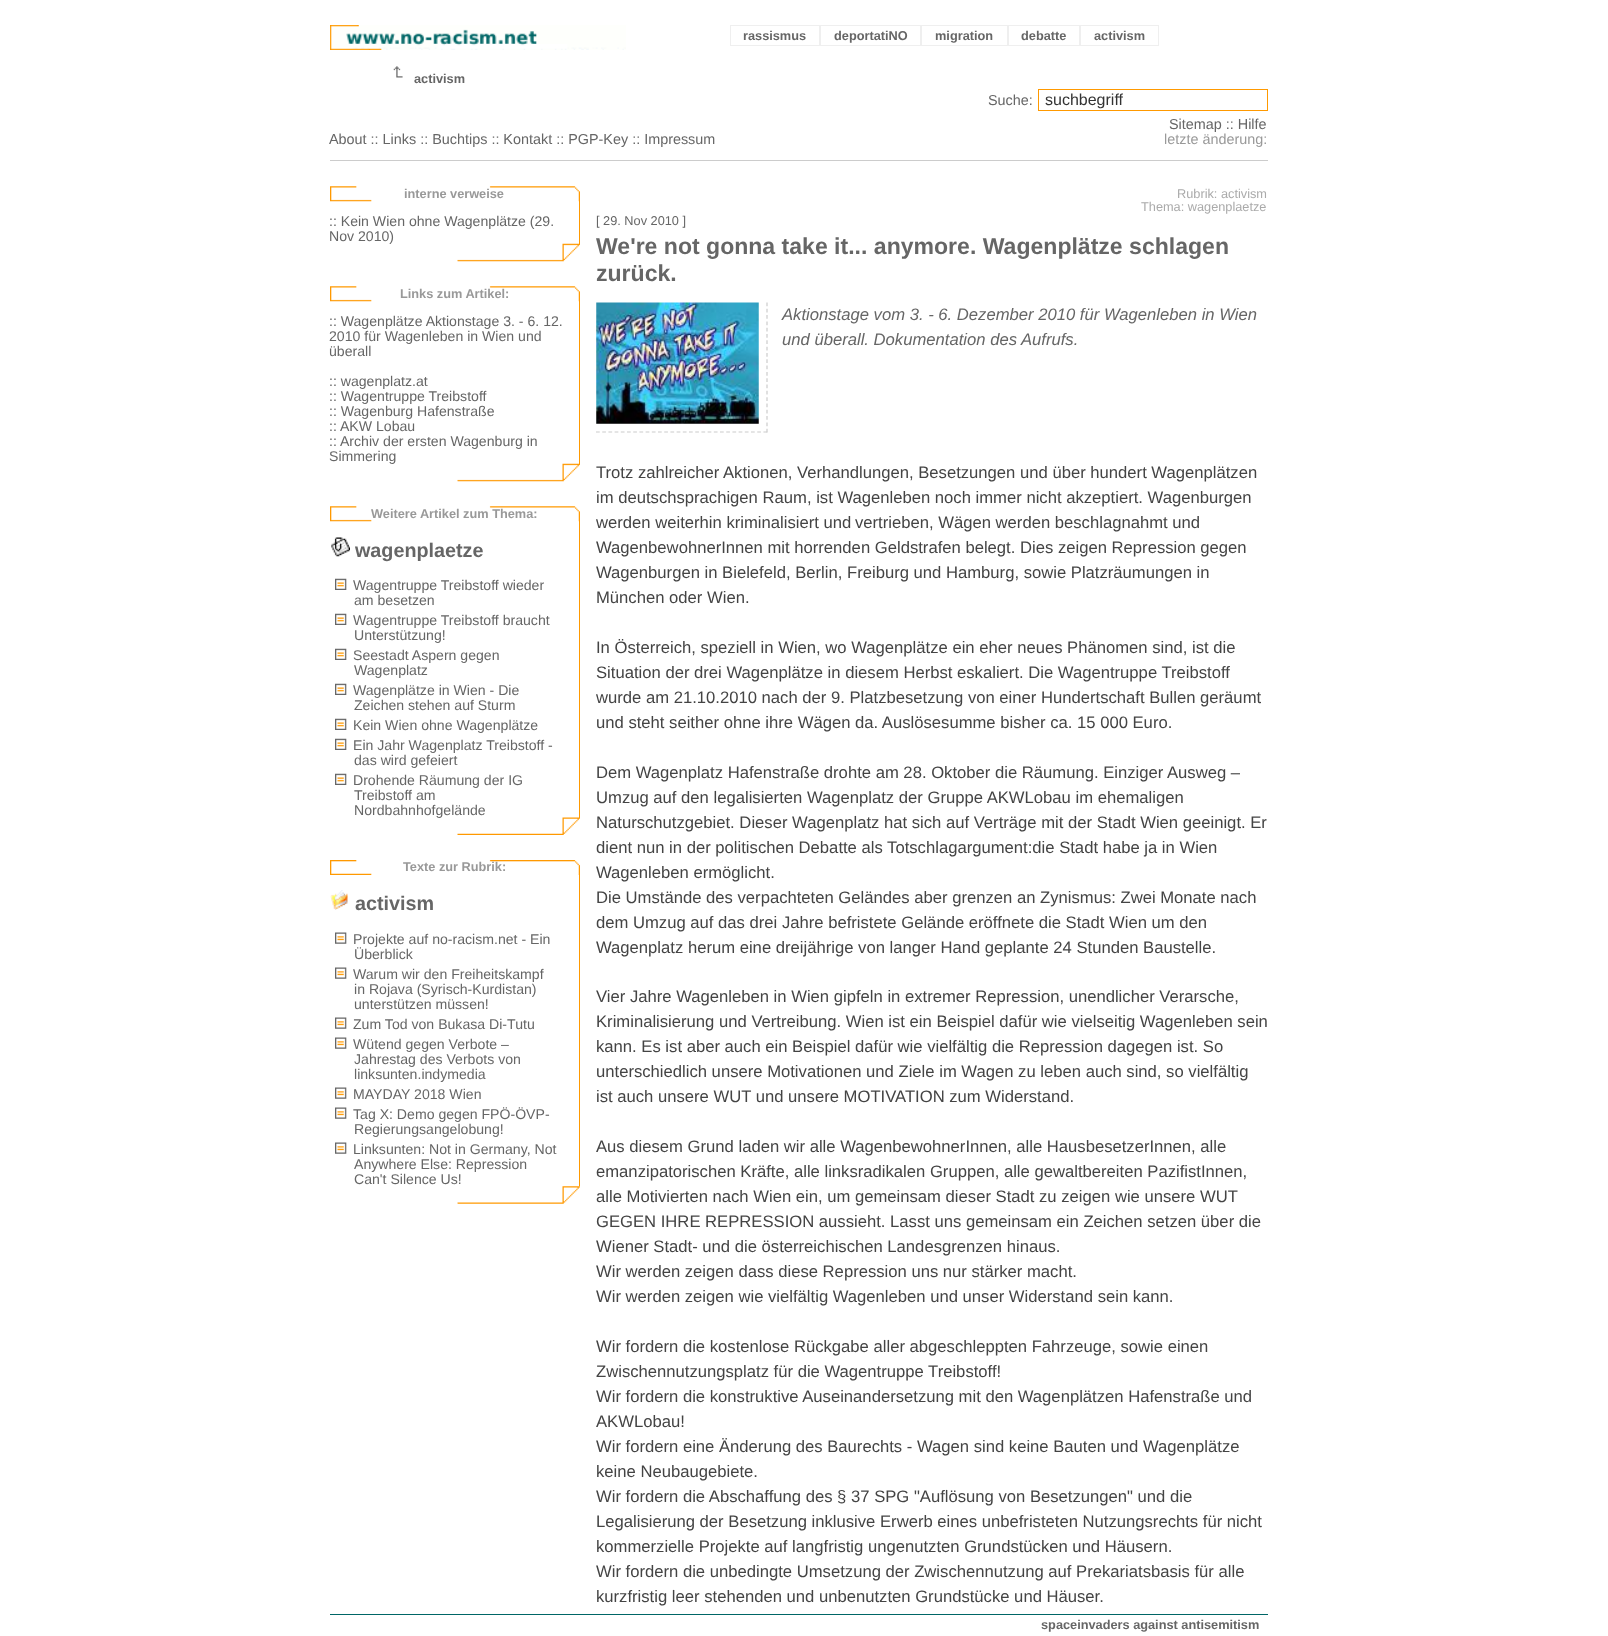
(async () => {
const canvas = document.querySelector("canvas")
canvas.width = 1608
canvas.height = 1636
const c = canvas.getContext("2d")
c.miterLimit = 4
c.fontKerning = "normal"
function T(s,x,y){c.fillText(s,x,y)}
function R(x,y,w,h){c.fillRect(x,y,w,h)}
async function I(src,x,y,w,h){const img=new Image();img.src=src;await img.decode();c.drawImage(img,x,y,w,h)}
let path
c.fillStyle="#fff"
R(0,0,1608,1636)
await I("1.png",330,25,296,25)
c.strokeStyle="#efefef"
c.strokeRect(730.5,25.5,89,20)
c.font="bold 12.75px Liberation Sans"
c.fillStyle="#666"
T("rassismus",743,40)
c.strokeRect(820.5,25.5,100,20)
T("deportatiNO",834,40)
c.strokeRect(921.5,25.5,86,20)
T("migration",935,40)
c.strokeRect(1008.5,25.5,71,20)
T("debatte",1021,40)
c.strokeRect(1080.5,25.5,78,20)
T("activism",1094,40)
await I("2.png",393,66,10,12)
T("activism",414,83)
c.font="14.4px Liberation Sans"
T("About :: Links :: Buchtips :: Kontakt :: PGP-Key :: Impressum",329,144)
T("Suche:",988,105)
c.strokeStyle="#f90"
c.strokeRect(1038.5,89.5,229,21)
c.font="16px Liberation Sans"
c.fillStyle="#333"
T("suchbegriff",1045,105)
c.font="14.4px Liberation Sans"
c.fillStyle="#666"
T("Sitemap :: Hilfe",1169,129)
c.fillStyle="#999"
T("letzte änderung:",1164,144)
c.fillStyle="#ccc"
R(330,160,938,1)
await I("3.png",330,186,250,16)
c.font="bold 12.75px Liberation Sans"
c.fillStyle="#999"
T("interne verweise",404,198)
c.fillStyle="#f90"
R(579,201,1,43)
c.font="14.1px Liberation Sans"
c.fillStyle="#666"
T(":: Kein Wien ohne Wagenplätze (29.",329,226)
T("Nov 2010)",329,241)
await I("4.png",457,243,123,19)
await I("3.png",330,286,250,16)
c.font="bold 12.75px Liberation Sans"
c.fillStyle="#999"
T("Links zum Artikel:",400,298)
c.fillStyle="#f90"
R(579,301,1,163)
c.font="14.1px Liberation Sans"
c.fillStyle="#666"
T(":: Wagenplätze Aktionstage 3. - 6. 12.",329,326)
T("2010 für Wagenleben in Wien und",329,341)
T("überall",329,356)
T(":: wagenplatz.at",329,386)
T(":: Wagentruppe Treibstoff",329,401)
T(":: Wagenburg Hafenstraße",329,416)
T(":: AKW Lobau",329,431)
T(":: Archiv der ersten Wagenburg in",329,446)
T("Simmering",329,461)
await I("4.png",457,463,123,19)
await I("3.png",330,506,250,16)
c.font="bold 12.75px Liberation Sans"
c.fillStyle="#999"
T("Weitere Artikel zum Thema:",371,518)
c.fillStyle="#f90"
R(579,521,1,297)
await I("5.png",331,537,19,20)
c.font="bold 19.75px Liberation Sans"
c.fillStyle="#666"
T("wagenplaetze",355,557)
await I("6.png",335,578,12,12)
c.font="14.1px Liberation Sans"
T("Wagentruppe Treibstoff wieder",353,590)
T("am besetzen",354,605)
await I("6.png",335,613,12,12)
T("Wagentruppe Treibstoff braucht",353,625)
T("Unterstützung!",354,640)
await I("6.png",335,648,12,12)
T("Seestadt Aspern gegen",353,660)
T("Wagenplatz",354,675)
await I("6.png",335,683,12,12)
T("Wagenplätze in Wien - Die",353,695)
T("Zeichen stehen auf Sturm",354,710)
await I("6.png",335,718,12,12)
T("Kein Wien ohne Wagenplätze",353,730)
await I("6.png",335,738,12,12)
T("Ein Jahr Wagenplatz Treibstoff -",353,750)
T("das wird gefeiert",354,765)
await I("6.png",335,773,12,12)
T("Drohende Räumung der IG",353,785)
T("Treibstoff am",354,800)
await I("7.png",457,817,123,18)
T("Nordbahnhofgelände",354,815)
await I("8.png",330,860,250,15)
c.font="bold 12.75px Liberation Sans"
c.fillStyle="#999"
T("Texte zur Rubrik:",403,871)
c.fillStyle="#f90"
R(579,875,1,311)
await I("9.png",330,890,18,20)
c.font="bold 19.75px Liberation Sans"
c.fillStyle="#666"
T("activism",355,910)
await I("10.png",335,932,12,12)
c.font="14.1px Liberation Sans"
T("Projekte auf no-racism.net - Ein",353,944)
T("Überblick",354,959)
await I("10.png",335,967,12,12)
T("Warum wir den Freiheitskampf",353,979)
T("in Rojava (Syrisch-Kurdistan)",354,994)
T("unterstützen müssen!",354,1009)
await I("10.png",335,1017,12,12)
T("Zum Tod von Bukasa Di-Tutu",353,1029)
await I("10.png",335,1037,12,12)
T("Wütend gegen Verbote –",353,1049)
T("Jahrestag des Verbots von",354,1064)
T("linksunten.indymedia",354,1079)
await I("10.png",335,1087,12,12)
T("MAYDAY 2018 Wien",353,1099)
await I("10.png",335,1107,12,12)
T("Tag X: Demo gegen FPÖ-ÖVP-",353,1119)
T("Regierungsangelobung!",354,1134)
await I("10.png",335,1142,12,12)
T("Linksunten: Not in Germany, Not",353,1154)
T("Anywhere Else: Repression",354,1169)
T("Can't Silence Us!",354,1184)
await I("11.png",457,1186,123,18)
c.font="12.75px Liberation Sans"
c.fillStyle="#aaa"
T("Rubrik: activism",1177,198)
T("Thema: wagenplaetze",1141,211)
c.fillStyle="#666"
T("[ 29. Nov 2010 ]",596,225)
c.font="bold 23.05px Liberation Sans"
T("We're not gonna take it... anymore. Wagenplätze schlagen",596,254)
T("zurück.",596,281)
path = new Path2D("M767 302.5v130")
c.strokeStyle="#ccc"
c.lineWidth=1.2
c.setLineDash([3.75,2.56])
c.stroke(path)
path = new Path2D("M596 432h171.5")
c.setLineDash([3.75,2.45])
c.stroke(path)
await I("12.png",596,302,163,122)
c.font="italic 16.65px Liberation Sans"
T("Aktionstage vom 3. - 6. Dezember 2010 für Wagenleben in Wien",782,320)
T("und überall. Dokumentation des Aufrufs.",782,345)
c.font="16.65px Liberation Sans"
c.fillStyle="#444"
T("Trotz zahlreicher Aktionen, Verhandlungen, Besetzungen und über hundert Wagenplätzen",596,478)
T("im deutschsprachigen Raum, ist Wagenleben noch immer nicht akzeptiert. Wagenburgen",596,503)
T("werden weiterhin kriminalisiert und",596,528)
T("vertrieben, Wägen werden beschlagnahmt und",855,528)
T("WagenbewohnerInnen mit horrenden Geldstrafen belegt. Dies zeigen Repression gegen",596,553)
T("Wagenburgen in Bielefeld, Berlin, Freiburg und Hamburg, sowie Platzräumungen in",596,578)
T("München oder Wien.",596,603)
T("In Österreich, speziell in Wien, wo Wagenplätze ein eher neues Phänomen sind, ist die",596,653)
T("Situation der drei Wagenplätze in diesem Herbst eskaliert. Die Wagentruppe Treibstoff",596,678)
T("wurde am 21.10.2010 nach der 9. Platzbesetzung von einer Hundertschaft Bullen geräumt",596,703)
T("und steht seither ohne ihre Wägen da. Auslösesumme bisher ca. 15 000 Euro.",596,728)
T("Dem Wagenplatz Hafenstraße drohte am 28. Oktober die Räumung. Einziger Ausweg –",596,778)
T("Umzug auf den legalisierten Wagenplatz der Gruppe AKWLobau im ehemaligen",596,803)
T("Naturschutzgebiet. Dieser Wagenplatz hat sich auf Verträge mit der Stadt Wien geeinigt. Er",596,828)
T("dient nun in der politischen Debatte als Totschlagargument:die Stadt habe ja in Wien",596,853)
T("Wagenleben ermöglicht.",596,878)
T("Die Umstände des verpachteten Geländes aber grenzen an Zynismus: Zwei Monate nach",596,903)
T("dem Umzug auf das drei Jahre befristete Gelände eröffnete die Stadt Wien um den",596,928)
T("Wagenplatz herum eine dreijährige von langer Hand geplante 24 Stunden Baustelle.",596,953)
T("Vier Jahre Wagenleben in Wien gipfeln in extremer Repression, unendlicher Verarsche,",596,1002)
T("Kriminalisierung und Vertreibung. Wien ist ein Beispiel dafür wie vielseitig Wagenleben sein",596,1027)
T("kann. Es ist aber auch ein Beispiel dafür wie vielfältig die Repression dagegen ist. So",596,1052)
T("unterschiedlich unsere Motivationen und Ziele im Wagen zu leben auch sind, so vielfältig",596,1077)
T("ist auch unsere WUT und unsere MOTIVATION zum Widerstand.",596,1102)
T("Aus diesem Grund laden wir alle WagenbewohnerInnen, alle HausbesetzerInnen, alle",596,1152)
T("emanzipatorischen Kräfte, alle linksradikalen Gruppen, alle gewaltbereiten PazifistInnen,",596,1177)
T("alle Motivierten nach Wien ein, um gemeinsam dieser Stadt zu zeigen wie unsere WUT",596,1202)
T("GEGEN IHRE REPRESSION aussieht. Lasst uns gemeinsam ein Zeichen setzen über die",596,1227)
T("Wiener Stadt- und die österreichischen Landesgrenzen hinaus.",596,1252)
T("Wir werden zeigen dass diese Repression uns nur stärker macht.",596,1277)
T("Wir werden zeigen wie vielfältig Wagenleben und unser Widerstand sein kann.",596,1302)
T("Wir fordern die kostenlose Rückgabe aller abgeschleppten Fahrzeuge, sowie einen",596,1352)
T("Zwischennutzungsplatz für die Wagentruppe Treibstoff!",596,1377)
T("Wir fordern die konstruktive Auseinandersetzung mit den Wagenplätzen Hafenstraße und",596,1402)
T("AKWLobau!",596,1427)
T("Wir fordern eine Änderung des Baurechts - Wagen sind keine Bauten und Wagenplätze",596,1452)
T("keine Neubaugebiete.",596,1477)
T("Wir fordern die Abschaffung des § 37 SPG \"Auflösung von Besetzungen\" und die",596,1502)
T("Legalisierung der Besetzung inklusive Erwerb eines unbefristeten Nutzungsrechts für nicht",596,1527)
T("kommerzielle Projekte auf langfristig ungenutzten Grundstücken und Häusern.",596,1552)
T("Wir fordern die unbedingte Umsetzung der Zwischennutzung auf Prekariatsbasis für alle",596,1577)
T("kurzfristig leer stehenden und unbenutzten Grundstücke und Häuser.",596,1602)
c.fillStyle="#066"
R(330,1614,938,1)
c.font="bold 12.75px Liberation Sans"
c.fillStyle="#666"
T("spaceinvaders against antisemitism",1041,1629)
})()
